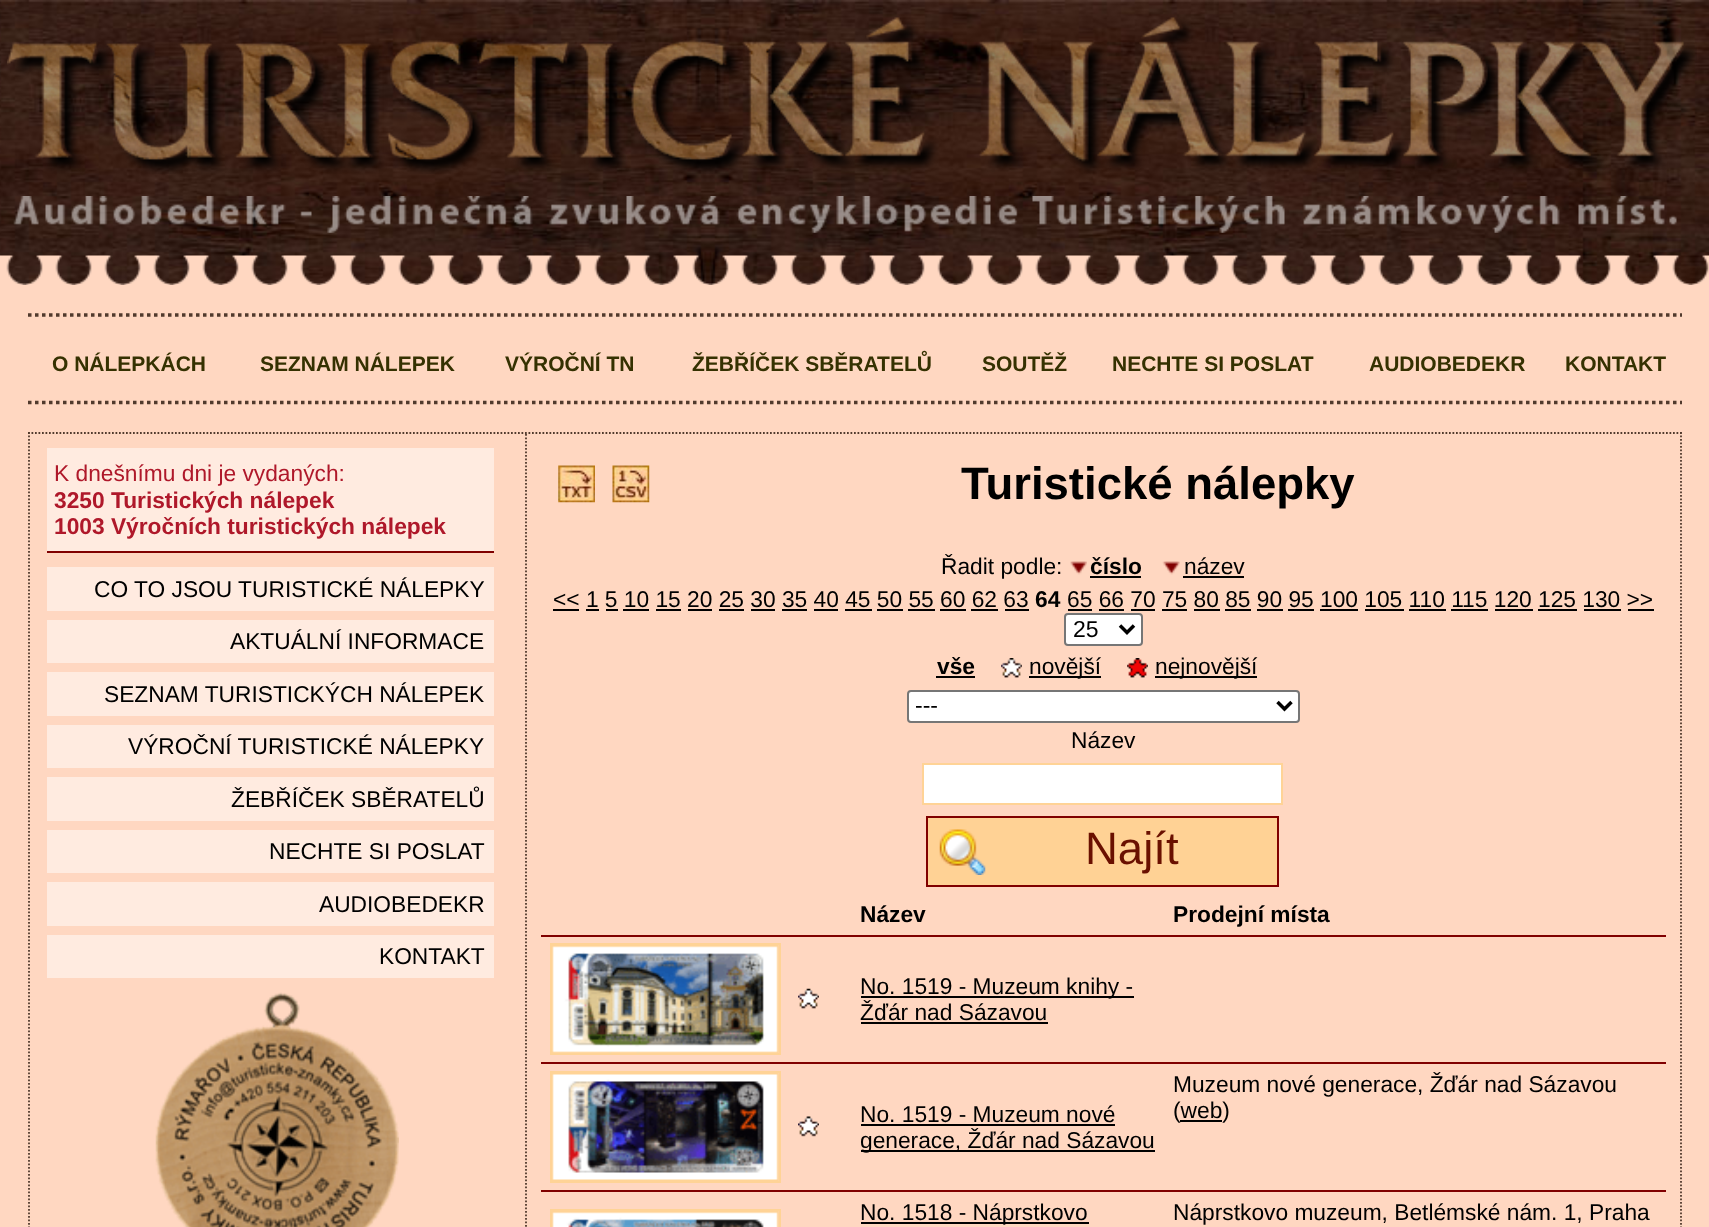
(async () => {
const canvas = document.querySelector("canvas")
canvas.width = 1709
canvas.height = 1227
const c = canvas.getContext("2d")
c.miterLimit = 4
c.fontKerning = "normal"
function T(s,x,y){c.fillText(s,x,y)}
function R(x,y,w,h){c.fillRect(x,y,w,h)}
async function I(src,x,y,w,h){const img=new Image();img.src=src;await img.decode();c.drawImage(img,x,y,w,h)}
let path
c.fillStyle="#fff"
R(0,0,1709,1227)
await I("1.png",0,0,1709,285)
await I("2.png",7,17,1690,157)
await I("3.png",13,196,1664,37)
await I("4.png",0,255,1709,30)
c.fillStyle="#ffd7c1"
R(0,285,1709,942)
path = new Path2D("M28 315h1654")
c.strokeStyle="#513a2d"
c.lineWidth=3.5
c.setLineDash([3.5,3.5])
c.stroke(path)
path = new Path2D("M28 402.5h1654")
c.stroke(path)
c.font="bold 21px Liberation Sans"
c.fillStyle="#353101"
T("O NÁLEPKÁCH",52,371)
T("SEZNAM NÁLEPEK",260,371)
T("VÝROČNÍ TN",505,371)
T("ŽEBŘÍČEK SBĚRATELŮ",692,371)
T("SOUTĚŽ",982,371)
T("NECHTE SI POSLAT",1112,371)
T("AUDIOBEDEKR",1369,371)
T("KONTAKT",1565,371)
path = new Path2D("M28 433h1654")
c.lineWidth=1.8
c.setLineDash([1.75,1.75])
c.stroke(path)
path = new Path2D("M1681 432v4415.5")
c.stroke(path)
path = new Path2D("M29 432v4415.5")
c.stroke(path)
c.fillStyle="#ffebe0"
R(47,448,447,103)
c.fillStyle="#800000"
R(47,551,447,2)
c.font="22.75px Liberation Sans"
c.fillStyle="#af182a"
T("K dnešnímu dni je vydaných:",54,481)
c.font="bold 22.75px Liberation Sans"
T("3250 Turistických nálepek",54,508)
T("1003 Výročních turistických nálepek",54,534)
c.fillStyle="#ffebe0"
R(47,567,447,44)
c.font="22.75px Liberation Sans"
c.fillStyle="#000"
T("CO TO JSOU TURISTICKÉ NÁLEPKY",94,597)
c.fillStyle="#ffebe0"
R(47,620,447,43)
c.fillStyle="#000"
T("AKTUÁLNÍ INFORMACE",230,649)
c.fillStyle="#ffebe0"
R(47,672,447,44)
c.fillStyle="#000"
T("SEZNAM TURISTICKÝCH NÁLEPEK",104,702)
c.fillStyle="#ffebe0"
R(47,725,447,43)
c.fillStyle="#000"
T("VÝROČNÍ TURISTICKÉ NÁLEPKY",128,754)
c.fillStyle="#ffebe0"
R(47,777,447,44)
c.fillStyle="#000"
T("ŽEBŘÍČEK SBĚRATELŮ",231,807)
c.fillStyle="#ffebe0"
R(47,830,447,43)
c.fillStyle="#000"
T("NECHTE SI POSLAT",269,859)
c.fillStyle="#ffebe0"
R(47,882,447,44)
c.fillStyle="#000"
T("AUDIOBEDEKR",319,912)
c.fillStyle="#ffebe0"
R(47,935,447,43)
c.fillStyle="#000"
T("KONTAKT",379,964)
await I("5.png",155,992,244,235)
path = new Path2D("M526 434v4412")
c.stroke(path)
await I("6.png",558,465,37,38)
await I("7.png",612,465,38,38)
c.font="bold 45.5px Liberation Sans"
T("Turistické nálepky",961,499)
c.font="22.75px Liberation Sans"
T("Řadit podle:",941,574)
await I("8.png",1070,561,17,14)
c.font="bold 22.75px Liberation Sans"
T("číslo",1090,574)
R(1090,576,51,2)
await I("9.png",1162,561,18,14)
c.font="22.75px Liberation Sans"
T("název",1184,574)
R(1183,576,61,2)
T("<< 1 5 10 15 20 25 30 35 40 45 50 55 60 62 63",553,607)
R(553,609,26,2)
c.font="bold 22.75px Liberation Sans"
T("64",1035,607)
c.font="22.75px Liberation Sans"
T("65 66 70 75 80 85 90 95 100 105 110 115 120 125 130 >>",1067,607)
R(1068,609,24,2)
R(586,609,13,2)
R(606,609,12,2)
R(623,609,26,2)
R(656,609,25,2)
R(688,609,24,2)
R(719,609,25,2)
R(751,609,24,2)
R(782,609,25,2)
R(814,609,24,2)
R(845,609,27,2)
R(877,609,26,2)
R(908,609,27,2)
R(940,609,26,2)
R(971,609,27,2)
R(1005,609,24,2)
R(1099,609,25,2)
R(1131,609,24,2)
R(1162,609,25,2)
R(1194,609,26,2)
R(1225,609,26,2)
R(1257,609,26,2)
R(1288,609,26,2)
R(1320,609,38,2)
R(1365,609,39,2)
R(1409,609,37,2)
R(1451,609,37,2)
R(1495,609,38,2)
R(1538,609,39,2)
R(1584,609,37,2)
R(1628,609,26,2)
c.fillStyle="#fff"
c.beginPath()
c.roundRect(1065,614,77,31,3)
c.fill()
c.strokeStyle="#767676"
c.lineWidth=2
c.setLineDash([])
c.stroke()
path = new Path2D("M1120 625.5l7 7l7-7")
c.strokeStyle="#000"
c.lineWidth=3.5
c.stroke(path)
c.font="23px Liberation Sans"
c.fillStyle="#000"
T("25",1073,637)
c.font="bold 22.75px Liberation Sans"
T("vše",937,674)
R(936,676,39,2)
await I("10.png",1001,658,21,20)
R(1029,676,72,2)
c.font="22.75px Liberation Sans"
T("novější",1029,674)
await I("11.png",1127,658,21,20)
R(1155,676,102,2)
T("nejnovější",1155,674)
c.fillStyle="#fff"
c.beginPath()
c.roundRect(908,691,391,31,3)
c.fill()
c.strokeStyle="#767676"
c.lineWidth=2
c.stroke()
path = new Path2D("M1277.5 702l7 7l7-7")
c.strokeStyle="#000"
c.lineWidth=3.5
c.stroke(path)
c.font="23px Liberation Sans"
c.fillStyle="#000"
T("---",915,713)
c.font="22.75px Liberation Sans"
T("Název",1071,748)
c.fillStyle="#fff"
c.beginPath()
c.rect(923,764,359,40)
c.fill()
c.strokeStyle="#ffd396"
c.lineWidth=2
c.stroke()
c.fillStyle="#ffd295"
c.beginPath()
c.rect(927,817,351,69)
c.fill()
c.strokeStyle="#800000"
c.stroke()
await I("12.png",939,829,47,46)
c.font="45.5px Liberation Sans"
c.fillStyle="#6a1000"
T("Najít",1085,864)
c.font="bold 22.75px Liberation Sans"
c.fillStyle="#000"
T("Název",860,922)
T("Prodejní místa",1173,922)
c.fillStyle="#800000"
R(541,935,1125,2)
c.strokeStyle="#ffd396"
c.strokeRect(551,944,229,110)
await I("13.png",552,945,227,109)
await I("14.png",798,988,21,21)
c.fillStyle="#000"
R(861,996,273,2)
c.font="22.75px Liberation Sans"
T("No. 1519 - Muzeum knihy -",860,994)
T("Žďár nad Sázavou",860,1020)
R(861,1022,187,2)
c.fillStyle="#800000"
R(541,1062,1125,2)
c.strokeRect(551,1072,229,110)
await I("15.png",552,1073,227,108)
c.fillStyle="#000"
T("Muzeum nové generace, Žďár nad Sázavou",1173,1092)
T("(web)",1173,1118)
R(1180,1120,42,2)
await I("16.png",798,1116,21,21)
T("No. 1519 - Muzeum nové",860,1122)
R(861,1124,254,2)
R(861,1150,294,2)
T("generace, Žďár nad Sázavou",860,1148)
c.fillStyle="#800000"
R(541,1190,1125,2)
c.strokeRect(551,1210,229,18)
await I("17.png",552,1211,227,16)
c.fillStyle="#000"
R(861,1222,228,2)
T("No. 1518 - Náprstkovo",860,1220)
T("Náprstkovo muzeum, Betlémské nám. 1, Praha",1173,1220)
})()
